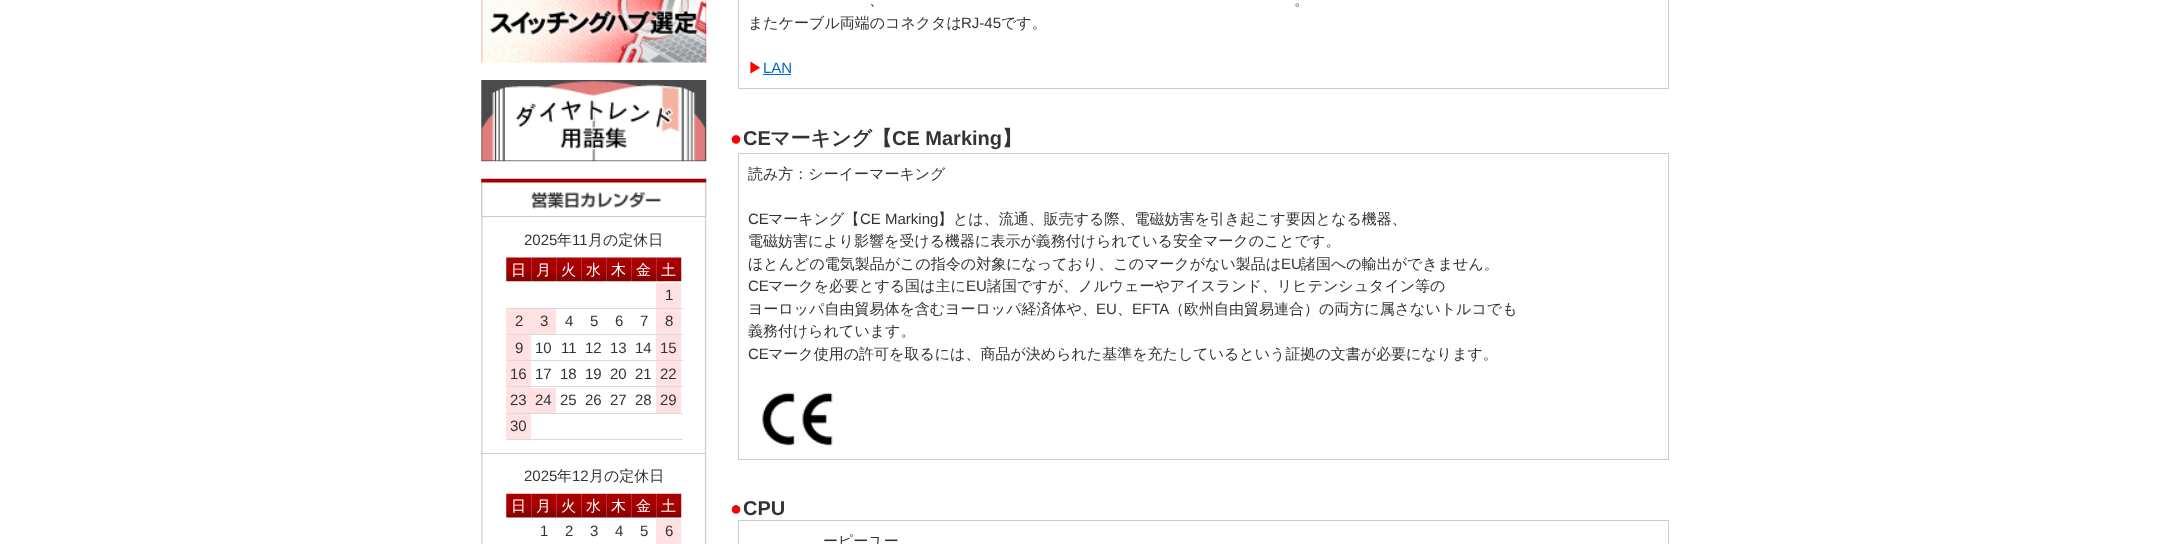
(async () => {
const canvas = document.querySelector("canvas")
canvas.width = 2162
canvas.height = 544
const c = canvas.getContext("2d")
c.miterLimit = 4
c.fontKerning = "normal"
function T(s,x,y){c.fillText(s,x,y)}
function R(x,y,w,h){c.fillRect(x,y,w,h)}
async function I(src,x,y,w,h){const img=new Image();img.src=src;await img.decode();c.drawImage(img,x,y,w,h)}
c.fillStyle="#fff"
R(0,0,2162,544)
await I("1.png",481,0,226,63)
await I("2.png",481,80,226,82)
await I("3.png",481,178,226,366)
await I("4.png",481,178,226,38)
c.fillStyle="#ccc"
R(481,216,225,1)
c.font="15px Liberation Sans"
c.fillStyle="#333"
T("2025",524,245)
c.font="500 15px WenQuanYi Zen Hei"
T("年",557,245)
c.font="15px Liberation Sans"
T("11",572,245)
c.font="500 15px WenQuanYi Zen Hei"
T("月の定休日",588,245)
await I("5.png",506,257,26,25)
c.fillStyle="#fff"
T("日",511,275)
await I("6.png",531,257,26,25)
T("月",536,275)
await I("7.png",556,257,26,25)
T("火",561,275)
await I("8.png",581,257,26,25)
T("水",586,275)
await I("9.png",606,257,26,25)
T("木",611,275)
await I("10.png",631,257,26,25)
T("金",636,275)
await I("11.png",656,257,26,25)
T("土",661,275)
c.fillStyle="#ffe1e1"
R(656,283,25,25)
c.fillStyle="#dbdbdb"
R(506,308,177,1)
c.font="15px Liberation Sans"
c.fillStyle="#333"
T("1",665,300)
c.fillStyle="#ffe1e1"
R(506,309,50,25)
c.fillStyle="#333"
T("2",515,326)
T("3",540,326)
T("4",565,326)
T("5",590,326)
T("6",615,326)
T("7",640,326)
c.fillStyle="#ffe1e1"
R(656,309,25,25)
c.fillStyle="#dbdbdb"
R(506,334,177,1)
c.fillStyle="#333"
T("8",665,326)
c.fillStyle="#ffe1e1"
R(506,335,25,25)
c.fillStyle="#333"
T("9",515,353)
T("10",535,353)
T("11",561,353)
T("12",585,353)
T("13",610,353)
T("14",635,353)
c.fillStyle="#ffe1e1"
R(656,335,25,25)
c.fillStyle="#dbdbdb"
R(506,360,177,1)
c.fillStyle="#333"
T("15",660,353)
c.fillStyle="#ffe1e1"
R(506,361,25,52)
c.fillStyle="#333"
T("16",510,379)
T("17",535,379)
T("18",560,379)
T("19",585,379)
T("20",610,379)
T("21",635,379)
c.fillStyle="#ffe1e1"
R(656,361,25,52)
c.fillStyle="#dbdbdb"
R(506,386,177,1)
c.fillStyle="#333"
T("22",660,379)
T("23",510,405)
c.fillStyle="#ffe1e1"
R(531,388,25,25)
c.fillStyle="#333"
T("24",535,405)
T("25",560,405)
T("26",585,405)
T("27",610,405)
T("28",635,405)
c.fillStyle="#dbdbdb"
R(506,413,177,1)
c.fillStyle="#333"
T("29",660,405)
c.fillStyle="#ffe1e1"
R(506,414,25,25)
c.fillStyle="#333"
T("30",510,431)
c.fillStyle="#dbdbdb"
R(506,439,177,1)
c.fillStyle="#ccc"
R(481,453,225,1)
c.fillStyle="#333"
T("2025",524,481)
c.font="500 15px WenQuanYi Zen Hei"
T("年",557,481)
c.font="15px Liberation Sans"
T("12",572,481)
c.font="500 15px WenQuanYi Zen Hei"
T("月の定休日",589,481)
await I("12.png",506,493,26,25)
c.fillStyle="#fff"
T("日",511,511)
await I("13.png",531,493,26,25)
T("月",536,511)
await I("13.png",556,493,26,25)
T("火",561,511)
await I("13.png",581,493,26,25)
T("水",586,511)
await I("13.png",606,493,26,25)
T("木",611,511)
await I("13.png",631,493,26,25)
T("金",636,511)
await I("13.png",656,493,26,25)
T("土",661,511)
c.font="15px Liberation Sans"
c.fillStyle="#333"
T("1",540,536)
T("2",565,536)
T("3",590,536)
T("4",615,536)
T("5",640,536)
c.fillStyle="#ffe1e1"
R(656,519,25,25)
c.fillStyle="#333"
T("6",665,536)
c.fillStyle="#ccc"
R(1668,0,1,89)
R(738,88,931,1)
R(738,0,1,89)
c.font="500 15px WenQuanYi Zen Hei"
c.fillStyle="#333"
T("、",869,5)
T("。",1294,5)
T("またケーブル両端のコネクタは",748,28)
c.font="15px Liberation Sans"
T("RJ-45",961,28)
c.font="500 15px WenQuanYi Zen Hei"
T("です。",1001,28)
c.fillStyle="#f00"
T("▶",748,73)
c.font="15px Liberation Sans"
c.fillStyle="#06c"
T("LAN",763,73)
R(763,74,28,1)
c.font="bold 20px Liberation Sans"
c.fillStyle="#f00"
T("●",730,145)
c.fillStyle="#333"
T("CE",743,145)
c.font="bold 20px WenQuanYi Zen Hei"
T("マーキング【",770,145)
c.font="bold 20px Liberation Sans"
T("CE Marking",892,145)
c.font="bold 20px WenQuanYi Zen Hei"
T("】",1002,145)
c.fillStyle="#ccc"
R(738,153,931,1)
R(1668,153,1,307)
R(738,459,931,1)
R(738,153,1,307)
c.font="500 15px WenQuanYi Zen Hei"
c.fillStyle="#333"
T("読み方：シーイーマーキング",748,179)
c.font="15px Liberation Sans"
T("CE",748,224)
c.font="500 15px WenQuanYi Zen Hei"
T("マーキング【",768,224)
c.font="15px Liberation Sans"
T("CE Marking",860,224)
c.font="500 15px WenQuanYi Zen Hei"
T("】とは、流通、販売する際、電磁妨害を引き起こす要因となる機器、",938,224)
T("電磁妨害により影響を受ける機器に表示が義務付けられている安全マークのことです。",748,246)
T("ほとんどの電気製品がこの指令の対象になっており、このマークがない製品は",748,269)
c.font="15px Liberation Sans"
T("EU",1281,269)
c.font="500 15px WenQuanYi Zen Hei"
T("諸国への輸出ができません。",1301,269)
c.font="15px Liberation Sans"
T("CE",748,291)
c.font="500 15px WenQuanYi Zen Hei"
T("マークを必要とする国は主に",768,291)
c.font="15px Liberation Sans"
T("EU",966,291)
c.font="500 15px WenQuanYi Zen Hei"
T("諸国ですが、ノルウェーやアイスランド、リヒテンシュタイン等の",987,291)
T("ヨーロッパ自由貿易体を含むヨーロッパ経済体や、",748,314)
c.font="15px Liberation Sans"
T("EU",1096,314)
c.font="500 15px WenQuanYi Zen Hei"
T("、",1117,314)
c.font="15px Liberation Sans"
T("EFTA",1132,314)
c.font="500 15px WenQuanYi Zen Hei"
T("（欧州自由貿易連合）の両方に属さないトルコでも",1169,314)
T("義務付けられています。",748,336)
c.font="15px Liberation Sans"
T("CE",748,359)
c.font="500 15px WenQuanYi Zen Hei"
T("マーク使用の許可を取るには、商品が決められた基準を充たしているという証拠の文書が必要になります。",768,359)
await I("14.png",762,392,71,54)
c.font="bold 20px Liberation Sans"
c.fillStyle="#f00"
T("●",730,515)
c.fillStyle="#333"
T("CPU",743,515)
c.fillStyle="#ccc"
R(738,520,931,1)
R(1668,520,1,24)
R(738,520,1,24)
c.font="500 15px WenQuanYi Zen Hei"
c.fillStyle="#333"
T("ーピーユー",823,546)
})()
